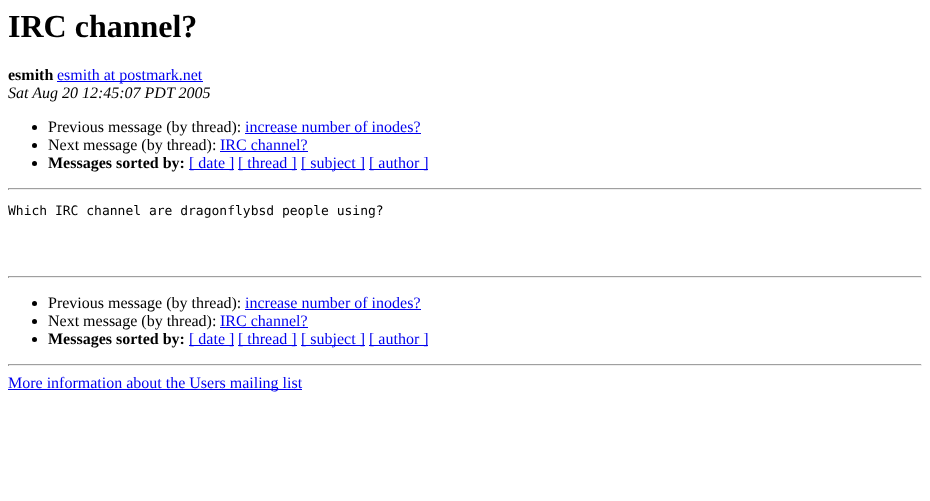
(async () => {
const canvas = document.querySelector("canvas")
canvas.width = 930
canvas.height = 501
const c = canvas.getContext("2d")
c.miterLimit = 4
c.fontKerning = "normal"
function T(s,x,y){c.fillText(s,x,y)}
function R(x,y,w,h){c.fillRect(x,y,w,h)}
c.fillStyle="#fff"
R(0,0,930,501)
c.font="bold 32px Liberation Serif"
c.fillStyle="#000"
T("IRC channel?",8,37)
c.font="bold 16px Liberation Serif"
T("esmith",8,80)
c.fillStyle="#00e"
R(57,81,146,1)
c.font="16px Liberation Serif"
T("esmith at postmark.net",57,80)
c.font="italic 16px Liberation Serif"
c.fillStyle="#000"
T("Sat Aug 20 12:45:07 PDT 2005",8,98)
c.beginPath()
c.arc(34.5,127.5,2.5,0,7)
c.fill()
c.font="16px Liberation Serif"
T("Previous message (by thread):",48,132)
c.fillStyle="#00e"
T("increase number of inodes?",245,132)
R(245,133,176,1)
c.fillStyle="#000"
c.beginPath()
c.arc(34.5,145.5,2.5,0,7)
c.fill()
T("Next message (by thread):",48,150)
c.fillStyle="#00e"
T("IRC channel?",220,150)
R(220,151,88,1)
c.fillStyle="#000"
c.beginPath()
c.arc(34.5,163.5,2.5,0,7)
c.fill()
c.font="bold 16px Liberation Serif"
T("Messages sorted by:",48,168)
c.fillStyle="#00e"
R(189,169,45,1)
c.font="16px Liberation Serif"
T("[ date ]",189,168)
R(238,169,59,1)
T("[ thread ]",238,168)
R(301,169,64,1)
T("[ subject ]",301,168)
R(369,169,59,1)
T("[ author ]",369,168)
c.fillStyle="#9f9f9f"
R(8,188,914,1)
c.fillStyle="#eee"
R(921,188,1,2)
R(8,189,914,1)
c.fillStyle="#9f9f9f"
R(8,188,1,2)
c.font="13px DejaVu Sans Mono"
c.fillStyle="#000"
T("Which IRC channel are dragonflybsd people using?",8,215)
c.fillStyle="#9f9f9f"
R(8,276,914,1)
c.fillStyle="#eee"
R(921,276,1,2)
R(8,277,914,1)
c.fillStyle="#9f9f9f"
R(8,276,1,2)
c.fillStyle="#000"
c.beginPath()
c.arc(34.5,303.5,2.5,0,7)
c.fill()
c.font="16px Liberation Serif"
T("Previous message (by thread):",48,308)
c.fillStyle="#00e"
T("increase number of inodes?",245,308)
R(245,309,176,1)
c.fillStyle="#000"
c.beginPath()
c.arc(34.5,321.5,2.5,0,7)
c.fill()
T("Next message (by thread):",48,326)
c.fillStyle="#00e"
T("IRC channel?",220,326)
R(220,327,88,1)
c.fillStyle="#000"
c.beginPath()
c.arc(34.5,339.5,2.5,0,7)
c.fill()
c.font="bold 16px Liberation Serif"
T("Messages sorted by:",48,344)
c.fillStyle="#00e"
R(189,345,45,1)
c.font="16px Liberation Serif"
T("[ date ]",189,344)
R(238,345,59,1)
T("[ thread ]",238,344)
R(301,345,64,1)
T("[ subject ]",301,344)
R(369,345,59,1)
T("[ author ]",369,344)
c.fillStyle="#9f9f9f"
R(8,364,914,1)
c.fillStyle="#eee"
R(921,364,1,2)
R(8,365,914,1)
c.fillStyle="#9f9f9f"
R(8,364,1,2)
c.fillStyle="#00e"
R(8,389,294,1)
T("More information about the Users mailing list",8,388)
})()
